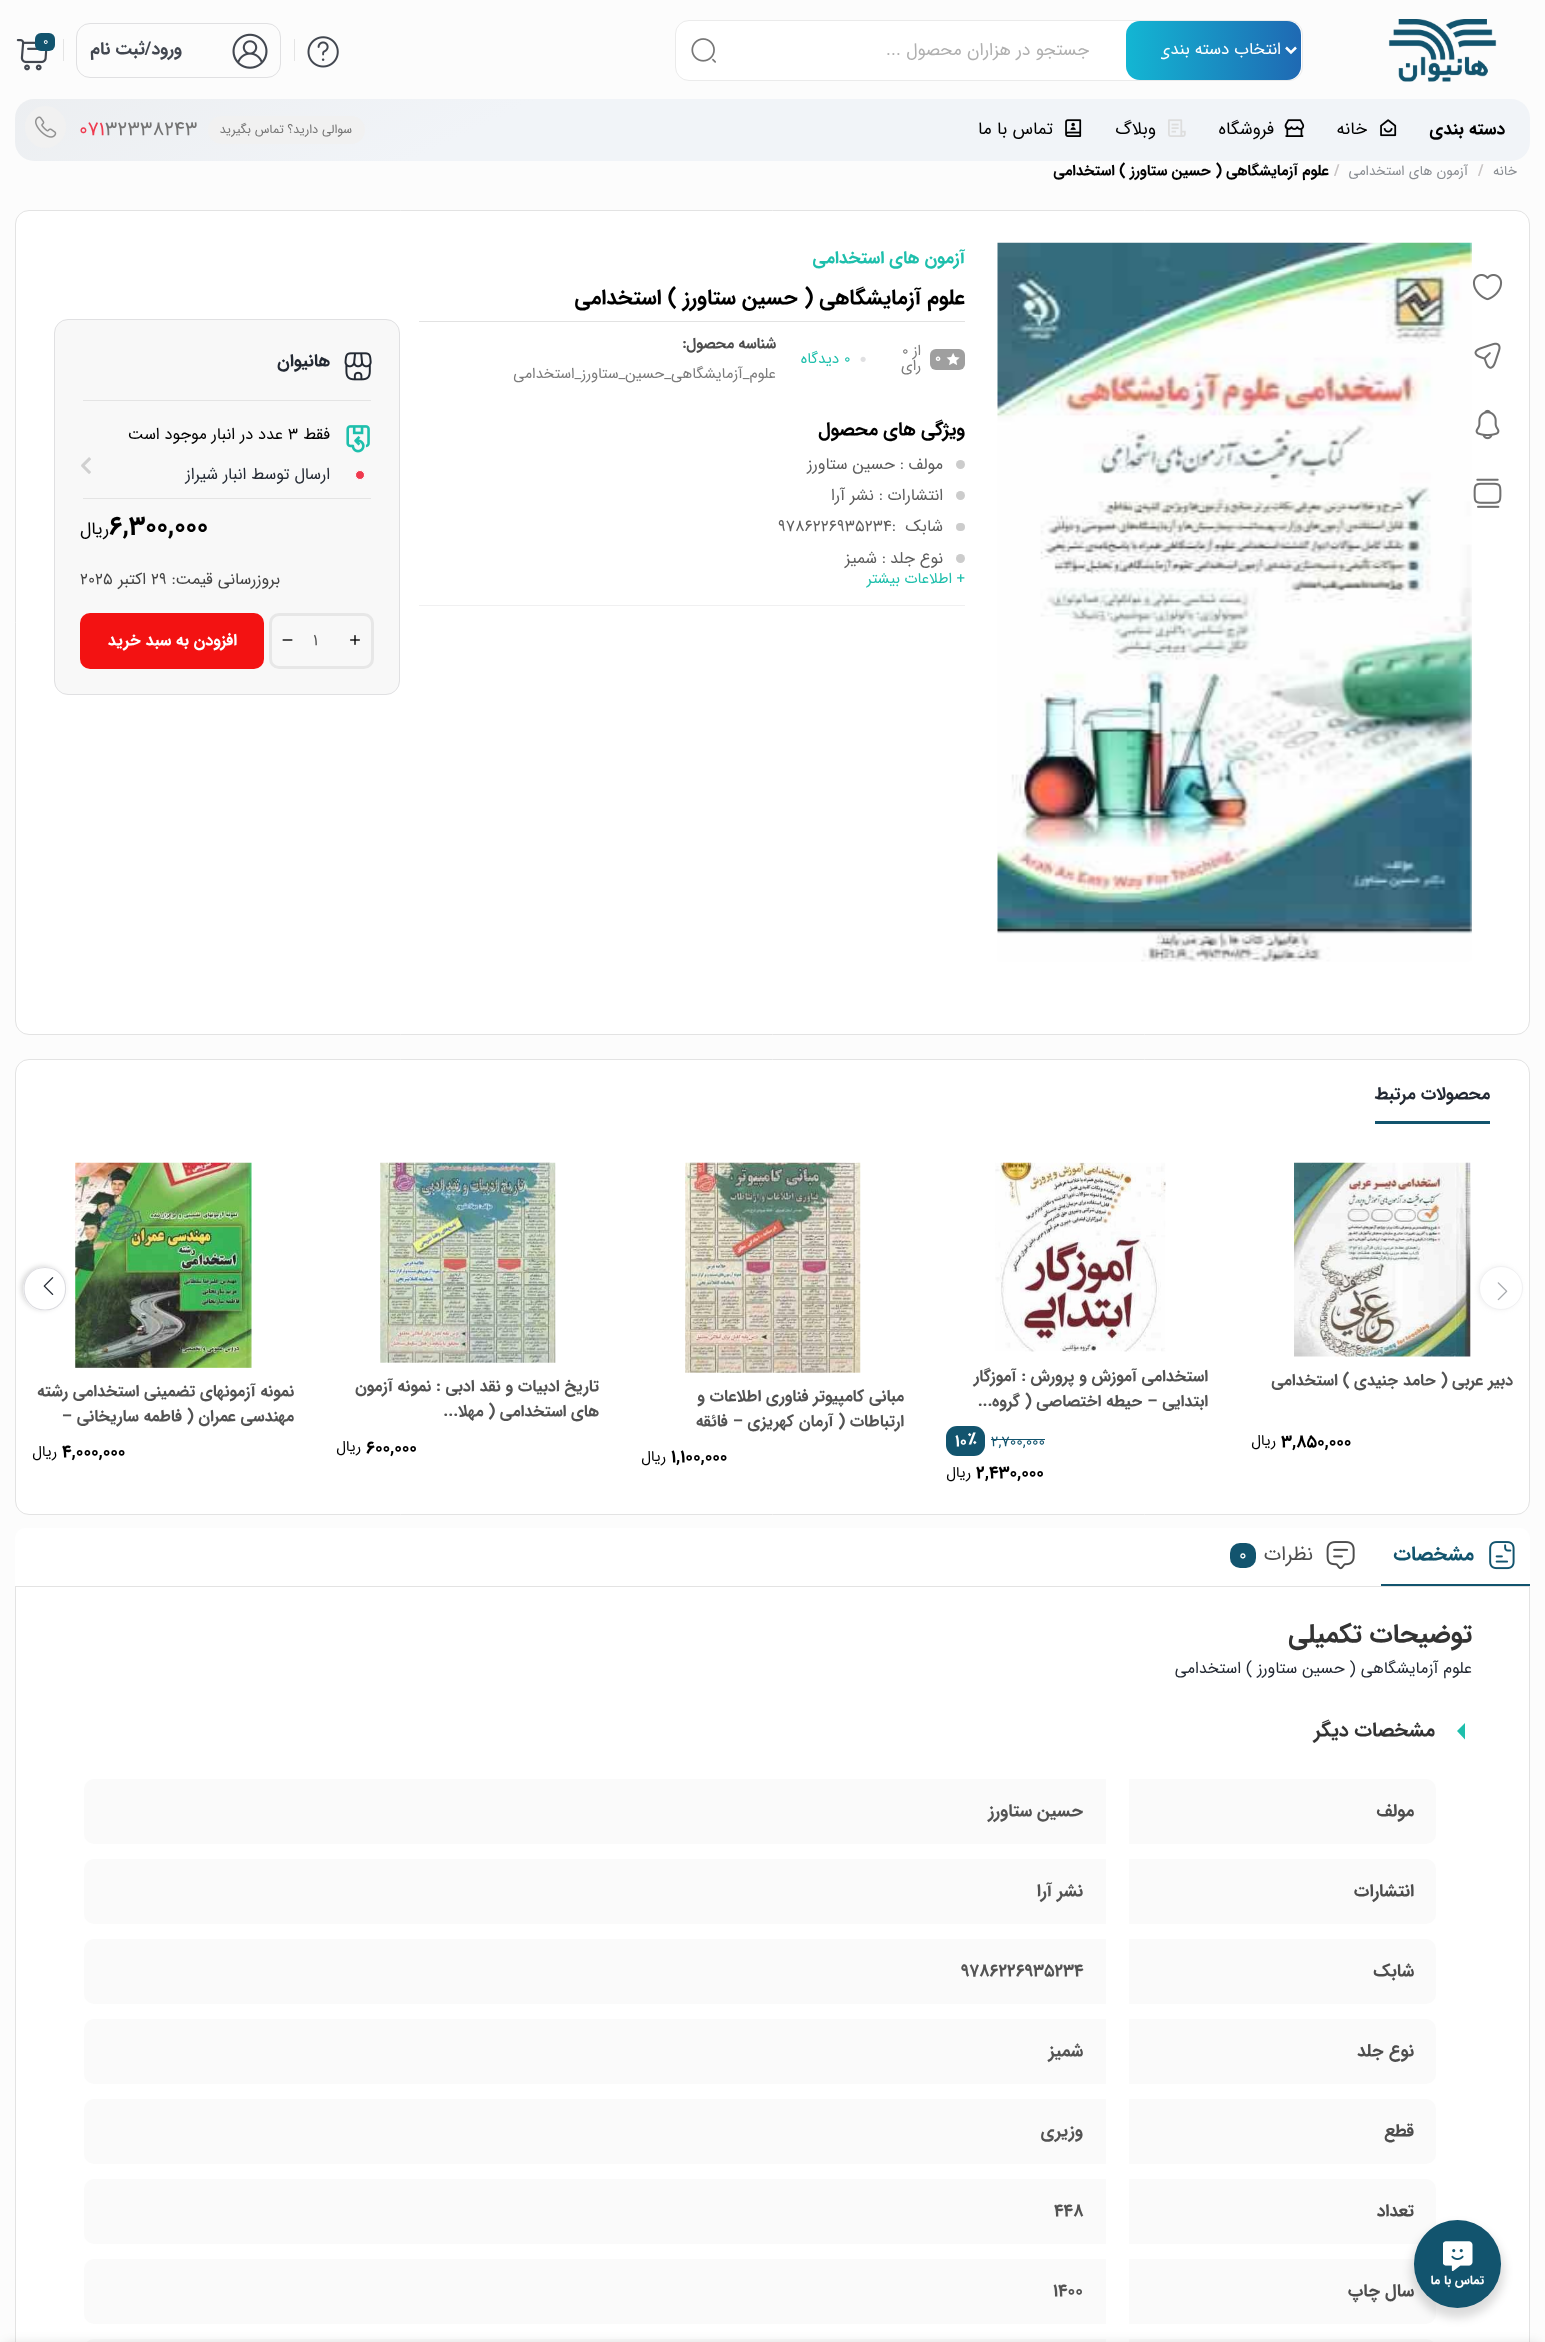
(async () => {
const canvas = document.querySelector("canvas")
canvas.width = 1545
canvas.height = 2342
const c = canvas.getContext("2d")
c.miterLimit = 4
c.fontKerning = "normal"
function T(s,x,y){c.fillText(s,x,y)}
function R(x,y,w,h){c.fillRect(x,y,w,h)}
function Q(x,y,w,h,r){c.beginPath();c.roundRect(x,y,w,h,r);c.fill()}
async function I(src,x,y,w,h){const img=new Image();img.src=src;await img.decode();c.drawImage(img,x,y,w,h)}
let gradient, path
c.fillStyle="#fcfcfc"
R(0,0,1545,2342)
await I("1.png",1388,19,109,63)
c.fillStyle="#fff"
c.beginPath()
c.roundRect(675.5,20.5,627,60,13.5)
c.fill()
c.strokeStyle="#ebebeb"
c.stroke()
gradient = c.createLinearGradient(1126,51,1301,51)
gradient.addColorStop(0,"#13b6d3")
gradient.addColorStop(1,"#1f69b3")
c.fillStyle = gradient
Q(1126,21,175,59,14)
path = new Path2D("M1286 47.5l5 5l5-5")
c.strokeStyle="#fff"
c.lineWidth=2.5
c.stroke(path)
c.save()
c.beginPath()
c.rect(1161,36,120,29)
c.clip()
c.direction="rtl"
c.font="16.75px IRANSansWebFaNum"
c.fillStyle="#fff"
T("انتخاب دسته بندی",1281,54)
c.restore()
c.direction="rtl"
c.font="17.5px IRANSansWebFaNum"
c.fillStyle="#b0b0b0"
T("جستجو در هزاران محصول ...",1089,55)
await I("2.png",691,38,25,25)
await I("3.png",307,36,32,32)
c.fillStyle="#e4e4e4"
R(294,39,1,22)
c.beginPath()
c.roundRect(76.5,23.5,204,54,13.5)
c.strokeStyle="#e0e0e2"
c.lineWidth=1
c.stroke()
await I("4.png",232,33,36,36)
c.font="bold 17.5px IRANSansWebFaNum"
c.fillStyle="#424750"
T("ورود/ثبت نام",182,54)
c.fillStyle="#e4e4e4"
R(63,39,1,22)
await I("5.png",16,39,32,32)
c.fillStyle="#12546e"
Q(35,33,20,18,6)
c.direction="ltr"
c.font="12.5px IRANSansWebFaNum"
c.fillStyle="#fff"
T("0",43,45)
gradient = c.createLinearGradient(934,456,568,-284)
gradient.addColorStop(.6,"#f1f4f8")
gradient.addColorStop(1,"#eaecee")
c.fillStyle = gradient
Q(15,99,1515,62,19)
c.direction="rtl"
c.font="bold 17.5px IRANSansWebFaNum"
c.fillStyle="#000"
T("دسته بندی",1505,134)
await I("6.png",1380,119,17,18)
c.font="17.5px IRANSansWebFaNum"
T("خانه",1367,134)
await I("7.png",1284,119,21,18)
T("فروشگاه",1274,134)
await I("8.png",1168,119,18,18)
T("وبلاگ",1156,134)
await I("9.png",1065,119,17,18)
T("تماس با ما",1053,134)
c.fillStyle="#f1f1f1"
Q(208,116,157,28,14)
c.font="12.5px IRANSansWebFaNum"
c.fillStyle="#737373"
T("سوالی دارید؟ تماس بگیرید",352,133)
c.direction="ltr"
c.font="20px IRANSansWebFaNum"
T("32338243",105,135)
c.fillStyle="#ef3a4f"
T("071",79,135)
c.fillStyle="#f1f1f1"
Q(25,106,41,42,20.5)
await I("10.png",35,116,22,22)
c.direction="rtl"
c.font="13.75px IRANSansWebFaNum"
c.fillStyle="#898d92"
T("خانه",1517,175)
c.direction="ltr"
c.font="bold 15px IRANSansWebFaNum"
c.fillStyle="#c8c4c4"
T("/",1478,175)
c.direction="rtl"
c.font="13.75px IRANSansWebFaNum"
c.fillStyle="#898d92"
T("آزمون های استخدامی",1468,175)
c.direction="ltr"
c.font="bold 15px IRANSansWebFaNum"
c.fillStyle="#c8c4c4"
T("/",1334,175)
c.direction="rtl"
c.fillStyle="#000"
T("علوم آزمایشگاهی ( حسین ستاورز ) استخدامی",1329,175)
c.fillStyle="#fff"
c.beginPath()
c.roundRect(15.5,210.5,1514,824,13.5)
c.fill()
c.strokeStyle="#e3e3e3"
c.stroke()
await I("11.png",1472,274,31,27)
await I("12.png",1474,342,27,27)
await I("13.png",1475,409,25,31)
await I("14.png",1473,478,29,30)
await I("15.png",997,242,475,720)
c.font="bold 17.5px IRANSansWebFaNum"
c.fillStyle="#1ebfac"
T("آزمون های استخدامی",965,263)
c.font="bold 21.25px IRANSansWebFaNum"
c.fillStyle="#000"
T("علوم آزمایشگاهی ( حسین ستاورز ) استخدامی",965,304)
c.fillStyle="#e2e2e2"
R(419,321,546,1)
c.fillStyle="#9f9f9f"
Q(930,349,35,21,6)
await I("16.png",946,353,14,12)
c.direction="ltr"
c.font="bold 13.75px IRANSansWebFaNum"
c.fillStyle="#fff"
T("0",935,362)
c.direction="rtl"
c.font="15px IRANSansWebFaNum"
c.fillStyle="#7b7b7b"
T("از",921,355)
c.direction="ltr"
T("0",902,355)
c.direction="rtl"
T("رای",921,370)
await I("17.png",860,356,6,6)
c.direction="ltr"
c.fillStyle="#1ebfac"
T("0",844,363)
c.direction="rtl"
T("دیدگاه",839,363)
c.font="bold 15px IRANSansWebFaNum"
c.fillStyle="#4d4d4d"
T("شناسه محصول:",776,348)
c.font="15px IRANSansWebFaNum"
c.fillStyle="#7b7b7b"
T("علوم_آزمایشگاهی_حسین_ستاورز_استخدامی",776,378)
c.fillStyle="#f0f0f1"
R(419,605,546,1)
c.font="bold 18.75px IRANSansWebFaNum"
c.fillStyle="#000"
T("ویژگی های محصول",965,435)
c.fillStyle="#ccc"
c.beginPath()
c.arc(960.5,464.5,4.5,0,7)
c.fill()
c.font="16.25px IRANSansWebFaNum"
c.fillStyle="#5d5d5d"
T("مولف",943,469)
T(": حسین ستاورز",904,469)
c.fillStyle="#ccc"
c.beginPath()
c.arc(960.5,495.5,4.5,0,7)
c.fill()
c.fillStyle="#5d5d5d"
T("انتشارات",943,500)
T(": نشر آرا",883,500)
c.fillStyle="#ccc"
Q(956,523,9,8,4)
c.fillStyle="#5d5d5d"
T("شابک",943,531)
c.direction="ltr"
T("9786226935234:",778,531)
c.fillStyle="#ccc"
c.beginPath()
c.arc(960.5,558.5,4.5,0,7)
c.fill()
c.direction="rtl"
c.fillStyle="#5d5d5d"
T("نوع جلد",943,563)
T(": شمیز",886,563)
c.font="15px IRANSansWebFaNum"
c.fillStyle="#1ebfac"
T("+ اطلاعات بیشتر",965,583)
c.fillStyle="#f8f8f8"
c.beginPath()
c.roundRect(54.5,319.5,345,375,13.5)
c.fill()
c.strokeStyle="#e0e0e2"
c.stroke()
await I("18.png",344,352,28,29)
c.font="bold 17.5px IRANSansWebFaNum"
c.fillStyle="#232933"
T("هانیوان",330,366)
c.fillStyle="#e4e4e4"
R(83,400,288,1)
await I("19.png",346,425,24,28)
c.font="16.25px IRANSansWebFaNum"
c.fillStyle="#000"
T("فقط",330,439)
c.direction="ltr"
T("3",288,439)
c.direction="rtl"
T("عدد در انبار موجود است",283,439)
await I("20.png",81,457,10,17)
c.fillStyle="#ef394e"
c.beginPath()
c.arc(360,475,4.5,0,7)
c.fill()
c.strokeStyle="#fff"
c.stroke()
c.fillStyle="#232933"
T("ارسال توسط انبار شیراز",330,479)
c.fillStyle="#e4e4e4"
R(83,498,288,1)
c.direction="ltr"
c.font="bold 26.25px IRANSansWebFaNum"
c.fillStyle="#000"
T("6,300,000",109,534)
c.direction="rtl"
c.font="17.5px IRANSansWebFaNum"
T("ریال",109,534)
c.font="16.25px IRANSansWebFaNum"
c.fillStyle="#444"
T("بروزرسانی قیمت:",280,584)
c.direction="ltr"
T("29",151,584)
c.direction="rtl"
T("اکتبر",146,584)
c.direction="ltr"
T("2025",80,584)
c.beginPath()
c.roundRect(270.5,614.5,102,53,8.5)
c.strokeStyle="#e7e7e7"
c.lineWidth=3
c.stroke()
await I("21.png",350,635,10,10)
c.fillStyle="#535353"
T("1",313,645)
await I("22.png",282,639,11,2)
c.fillStyle="#f31212"
Q(80,613,184,56,10)
c.direction="rtl"
c.font="bold 16.25px IRANSansWebFaNum"
c.fillStyle="#fff"
T("افزودن به سبد خرید",237,645)
c.beginPath()
c.roundRect(15.5,1059.5,1514,455,13.5)
c.fill()
c.strokeStyle="#e3e3e3"
c.lineWidth=1
c.stroke()
c.font="bold 17.5px IRANSansWebFaNum"
c.fillStyle="#232933"
T("محصولات مرتبط",1490,1099)
c.fillStyle="#12546e"
R(1375,1121,115,3)
await I("25.png",1294,1162,177,195)
c.fillStyle="#99999926"
c.filter="blur(2.5px)"
c.beginPath()
c.roundRect(1478,1266,43,44,21.5)
c.fill()
c.filter="none"
c.fillStyle="#fff"
c.beginPath()
c.arc(1501,1288,21.5,0,7)
c.fill()
c.strokeStyle="#f1f1f3"
c.stroke()
await I("23.png",1497,1282,11,19)
c.fillStyle="#00000026"
c.filter="blur(2.5px)"
c.beginPath()
c.roundRect(21,1266,44,44,22)
c.fill()
c.filter="none"
c.fillStyle="#fff"
path = new Path2D("M45 1311c-29 0-29-44 0-44c29 0 29 44 0 44z")
c.fill(path)
path = new Path2D("M45 1310c-28 0-28-42.5 0-42.5c27.5 0 27.5 42.5 0 42.5z")
c.strokeStyle="#dddde1"
c.lineWidth=1.2
c.stroke(path)
await I("24.png",43,1277,11,18)
c.font="bold 16.25px IRANSansWebFaNum"
c.fillStyle="#535353"
T("دبیر عربی ( حامد جنیدی ) استخدامی",1513,1385)
c.direction="ltr"
c.font="bold 17.5px IRANSansWebFaNum"
c.fillStyle="#000"
T("3,850,000",1281,1447)
c.direction="rtl"
c.font="15px IRANSansWebFaNum"
T("ریال",1276,1445)
await I("26.png",995,1162,171,190)
c.font="bold 16.25px IRANSansWebFaNum"
c.fillStyle="#535353"
T("استخدامی آموزش و پرورش : آموزگار",1208,1381)
T("ابتدایی – حیطه اختصاصی ( گروه...",1208,1406)
c.direction="ltr"
c.font="15px IRANSansWebFaNum"
c.fillStyle="#12546e"
T("2,700,000",991,1446)
R(991,1439,54,1)
Q(946,1426,39,30,11)
c.font="bold 16.25px IRANSansWebFaNum"
c.fillStyle="#fff"
T("٪",968,1444)
T("10",955,1446)
c.font="bold 17.5px IRANSansWebFaNum"
c.fillStyle="#000"
T("2,430,000",976,1478)
c.direction="rtl"
c.font="15px IRANSansWebFaNum"
T("ریال",971,1477)
await I("27.png",685,1162,176,211)
c.font="bold 16.25px IRANSansWebFaNum"
c.fillStyle="#535353"
T("مبانی کامپیوتر فناوری اطلاعات و",904,1401)
T("ارتباطات ( آرمان کهریزی – فائقه",904,1426)
c.direction="ltr"
c.font="bold 17.5px IRANSansWebFaNum"
c.fillStyle="#000"
T("1,100,000",671,1462)
c.direction="rtl"
c.font="15px IRANSansWebFaNum"
T("ریال",666,1461)
await I("28.png",380,1162,176,201)
c.font="bold 16.25px IRANSansWebFaNum"
c.fillStyle="#535353"
T("تاریخ ادبیات و نقد ادبی : نمونه آزمون",599,1391)
T("های استخدامی ( مهلا...",599,1416)
c.direction="ltr"
c.font="bold 17.5px IRANSansWebFaNum"
c.fillStyle="#000"
T("600,000",366,1453)
c.direction="rtl"
c.font="15px IRANSansWebFaNum"
T("ریال",361,1451)
await I("29.png",75,1162,177,206)
c.font="bold 16.25px IRANSansWebFaNum"
c.fillStyle="#535353"
T("نمونه آزمونهای تضمینی استخدامی رشته",294,1396)
T("مهندسی عمران ( فاطمه ساریخانی –",294,1421)
c.direction="ltr"
c.font="bold 17.5px IRANSansWebFaNum"
c.fillStyle="#000"
T("4,000,000",62,1457)
c.direction="rtl"
c.font="15px IRANSansWebFaNum"
T("ریال",57,1456)
c.fillStyle="#fff"
Q(15,1528,1515,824,10)
c.fillStyle="#12546e"
R(1381,1584,149,2)
await I("30.png",1489,1541,26,29)
c.font="bold 20px IRANSansWebFaNum"
T("مشخصات",1474,1560)
await I("31.png",1326,1541,29,29)
c.font="20px IRANSansWebFaNum"
c.fillStyle="#4d4d4d"
T("نظرات",1313,1560)
c.fillStyle="#12546e"
Q(1230,1543,26,25,10)
c.direction="ltr"
c.font="17.5px IRANSansWebFaNum"
c.fillStyle="#fff"
T("0",1239,1560)
c.strokeStyle="#e3e3e3"
c.lineWidth=1
c.strokeRect(15.5,1586.5,1514,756)
c.direction="rtl"
c.font="bold 26.25px IRANSansWebFaNum"
c.fillStyle="#343434"
T("توضیحات تکمیلی",1472,1642)
c.font="16.25px IRANSansWebFaNum"
c.fillStyle="#232933"
T("علوم آزمایشگاهی ( حسین ستاورز ) استخدامی",1472,1673)
c.fillStyle="#1ebfac"
path = new Path2D("M1457 1731l8-8v16.5z")
c.fill(path)
c.font="bold 20px IRANSansWebFaNum"
c.fillStyle="#343434"
T("مشخصات دیگر",1435,1736)
c.fillStyle="#fafafa"
c.beginPath()
c.roundRect(1129,1779,307,65,[0,10,10,0])
c.fill()
c.font="bold 17.5px IRANSansWebFaNum"
c.fillStyle="#4d4d4d"
T("مولف",1414,1816)
c.fillStyle="#fafafa"
c.beginPath()
c.roundRect(84,1779,1022,65,[10,0,0,10])
c.fill()
c.fillStyle="#535353"
T("حسین ستاورز",1083,1816)
c.fillStyle="#fafafa"
c.beginPath()
c.roundRect(1129,1859,307,65,[0,10,10,0])
c.fill()
c.fillStyle="#4d4d4d"
T("انتشارات",1414,1896)
c.fillStyle="#fafafa"
c.beginPath()
c.roundRect(84,1859,1022,65,[10,0,0,10])
c.fill()
c.fillStyle="#535353"
T("نشر آرا",1083,1896)
c.fillStyle="#fafafa"
c.beginPath()
c.roundRect(1129,1939,307,65,[0,10,10,0])
c.fill()
c.fillStyle="#4d4d4d"
T("شابک",1414,1976)
c.fillStyle="#fafafa"
c.beginPath()
c.roundRect(84,1939,1022,65,[10,0,0,10])
c.fill()
c.direction="ltr"
c.fillStyle="#535353"
T("9786226935234",961,1976)
c.fillStyle="#fafafa"
c.beginPath()
c.roundRect(1129,2019,307,65,[0,10,10,0])
c.fill()
c.direction="rtl"
c.fillStyle="#4d4d4d"
T("نوع جلد",1414,2056)
c.fillStyle="#fafafa"
c.beginPath()
c.roundRect(84,2019,1022,65,[10,0,0,10])
c.fill()
c.fillStyle="#535353"
T("شمیز",1083,2056)
c.fillStyle="#fafafa"
c.beginPath()
c.roundRect(1129,2099,307,65,[0,10,10,0])
c.fill()
c.fillStyle="#4d4d4d"
T("قطع",1414,2136)
c.fillStyle="#fafafa"
c.beginPath()
c.roundRect(84,2099,1022,65,[10,0,0,10])
c.fill()
c.fillStyle="#535353"
T("وزیری",1083,2136)
c.fillStyle="#fafafa"
c.beginPath()
c.roundRect(1129,2179,307,65,[0,10,10,0])
c.fill()
c.fillStyle="#4d4d4d"
T("تعداد",1414,2216)
c.fillStyle="#fafafa"
c.beginPath()
c.roundRect(84,2179,1022,65,[10,0,0,10])
c.fill()
c.direction="ltr"
c.fillStyle="#535353"
T("448",1054,2216)
c.fillStyle="#fafafa"
c.beginPath()
c.roundRect(1129,2259,307,65,[0,10,10,0])
c.fill()
c.direction="rtl"
c.fillStyle="#4d4d4d"
T("سال چاپ",1414,2296)
c.fillStyle="#fafafa"
c.beginPath()
c.roundRect(84,2259,1022,65,[10,0,0,10])
c.fill()
c.direction="ltr"
c.fillStyle="#535353"
T("1400",1053,2296)
c.fillStyle="#fafafa"
path = new Path2D("M1129 2339h297c5.5 0 10 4.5 10 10v-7c0 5.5-4.5 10-10 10h-297z")
c.fill(path)
path = new Path2D("M94 2339h1012v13h-1012c-5.5 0-10-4.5-10-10v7c0-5.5 4.5-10 10-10z")
c.fill(path)
c.fillStyle="#0000001f"
c.filter="blur(5.5px)"
c.beginPath()
c.roundRect(0,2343,1545,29,13)
c.fill()
c.filter="none"
c.fillStyle="#00000024"
c.filter="blur(5px)"
c.beginPath()
c.roundRect(1411,2225,93,93,46.5)
c.fill()
c.filter="none"
c.fillStyle="#12546e"
Q(1414,2220,87,88,43.5)
await I("32.png",1443,2241,30,30)
c.direction="rtl"
c.font="bold 12.5px IRANSansWebFaNum"
c.fillStyle="#fff"
T("تماس با ما",1484,2284)
})()
